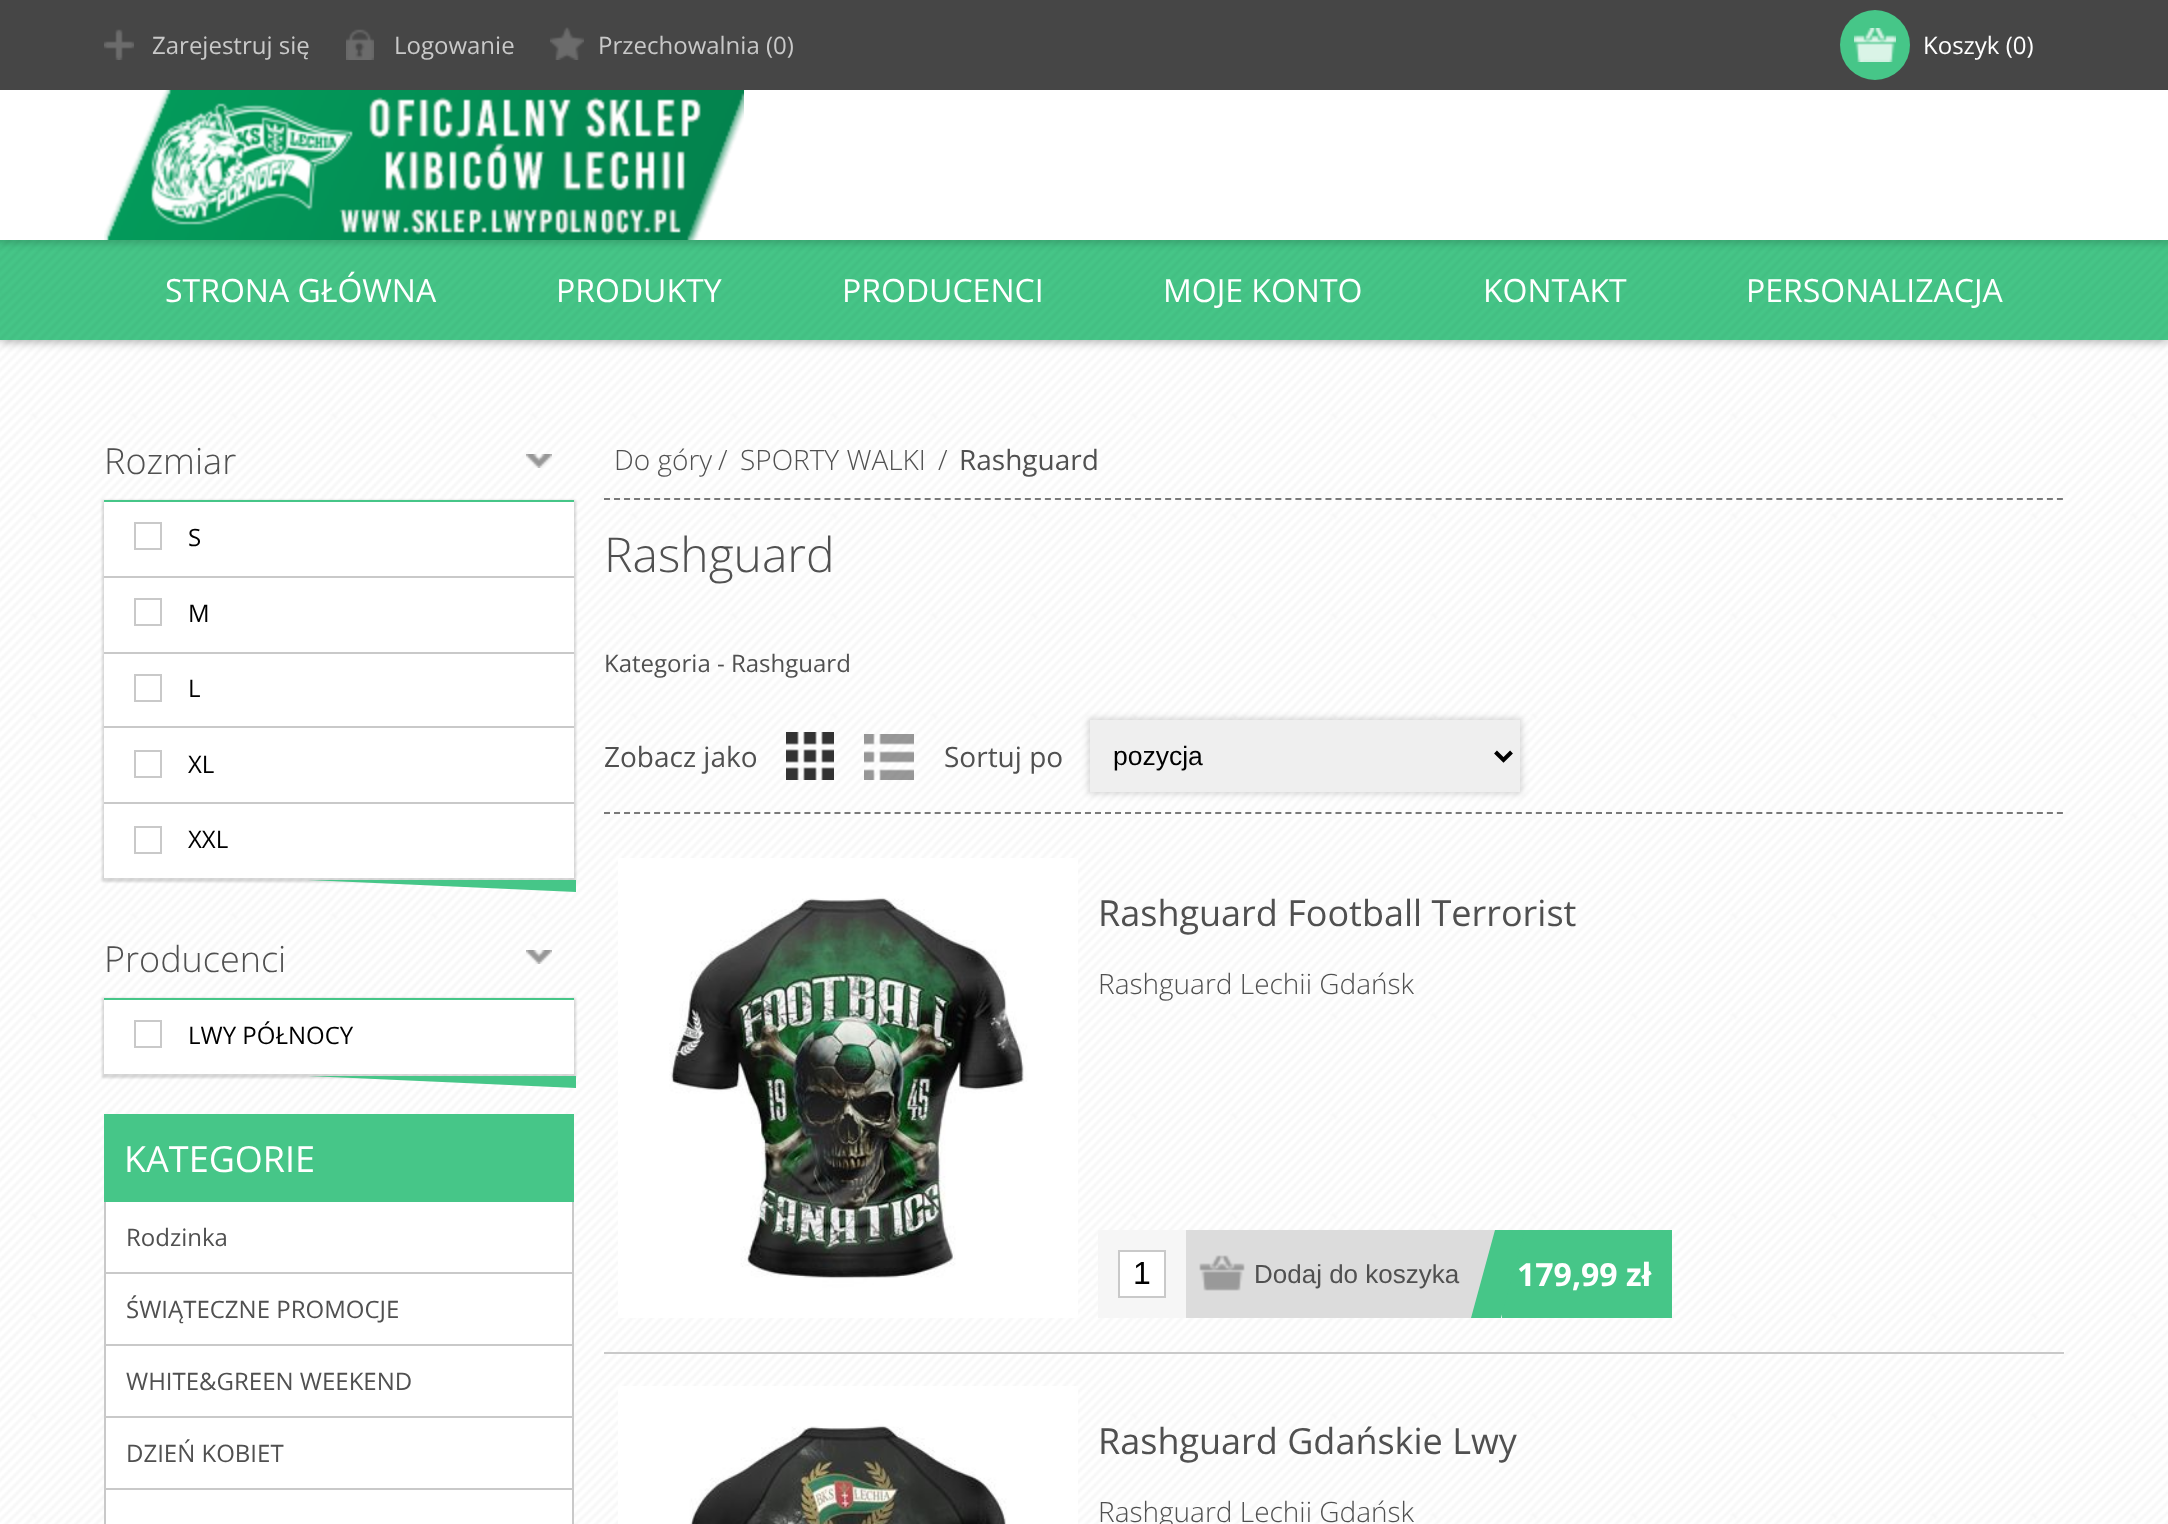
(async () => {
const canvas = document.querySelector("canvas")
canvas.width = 2168
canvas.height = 1524
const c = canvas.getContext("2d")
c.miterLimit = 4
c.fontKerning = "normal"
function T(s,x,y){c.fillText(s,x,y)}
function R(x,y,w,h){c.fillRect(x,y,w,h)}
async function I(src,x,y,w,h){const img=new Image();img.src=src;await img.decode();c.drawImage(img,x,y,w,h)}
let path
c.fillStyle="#fff"
R(0,0,2168,1524)
await I("1.png",0,340,2168,1184)
c.fillStyle="#0000004d"
c.filter="blur(5px)"
c.beginPath()
c.rect(0,242,2168,100)
c.fill()
c.filter="none"
c.fillStyle="#46c688"
R(0,240,2168,100)
await I("7.png",0,240,2168,100)
c.fillStyle="#00000026"
c.filter="blur(3px)"
c.beginPath()
c.rect(-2,0,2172,244)
c.fill()
c.filter="none"
c.fillStyle="#464646"
R(0,0,2168,90)
await I("2.png",104,29,30,31)
c.font="24px Open Sans"
c.fillStyle="#c9c9c9"
T("Zarejestruj się",152,54)
await I("3.png",346,29,28,31)
T("Logowanie",394,54)
await I("4.png",550,27,34,33)
T("Przechowalnia (0)",598,54)
c.fillStyle="#46c688"
c.beginPath()
c.arc(1875,45,35,0,7)
c.fill()
await I("5.png",1854,28,42,34)
c.fillStyle="#fff"
T("Koszyk (0)",1923,54)
R(0,90,2168,150)
await I("6.png",104,90,640,150)
c.font="32px Open Sans"
T("STRONA GŁÓWNA",165,302)
T("PRODUKTY",556,302)
T("PRODUCENCI",842,302)
T("MOJE KONTO",1163,302)
T("KONTAKT",1483,302)
T("PERSONALIZACJA",1746,302)
await I("8.png",526,454,26,14)
c.font="300 36px Open Sans"
c.fillStyle="#505050"
T("Rozmiar",104,474)
c.fillStyle="#00000026"
c.filter="blur(1px)"
c.beginPath()
c.rect(102,500,474,382)
c.fill()
c.filter="none"
c.fillStyle="#fff"
R(104,502,470,376)
c.fillStyle="#46c688"
R(104,500,470,2)
c.strokeStyle="#c9c9c9"
c.lineWidth=2
c.strokeRect(135,523,26,26)
c.font="24px Open Sans"
c.fillStyle="#000"
T("S",188,546)
c.fillStyle="#c9c9c9"
R(104,576,470,2)
c.strokeRect(135,599,26,26)
c.fillStyle="#000"
T("M",188,622)
c.fillStyle="#c9c9c9"
R(104,652,470,2)
c.strokeRect(135,675,26,26)
c.fillStyle="#000"
T("L",188,697)
c.fillStyle="#c9c9c9"
R(104,726,470,2)
c.strokeRect(135,751,26,26)
c.fillStyle="#000"
T("XL",188,773)
c.fillStyle="#c9c9c9"
R(104,802,470,2)
c.strokeRect(135,827,26,26)
c.fillStyle="#000"
T("XXL",188,848)
c.fillStyle="#46c688"
path = new Path2D("M576 880v12l-268-12z")
c.fill(path)
await I("9.png",526,950,26,14)
c.font="300 36px Open Sans"
c.fillStyle="#505050"
T("Producenci",104,972)
c.fillStyle="#00000026"
c.filter="blur(1px)"
c.beginPath()
c.rect(102,998,474,80)
c.fill()
c.filter="none"
c.fillStyle="#fff"
R(104,1000,470,74)
c.fillStyle="#46c688"
R(104,998,470,2)
c.strokeRect(135,1021,26,26)
c.font="24px Open Sans"
c.fillStyle="#000"
T("LWY PÓŁNOCY",188,1044)
c.fillStyle="#46c688"
path = new Path2D("M576 1076v12l-268-12z")
c.fill(path)
R(104,1114,470,88)
c.font="36px Open Sans"
c.fillStyle="#fff"
T("KATEGORIE",124,1172)
R(106,1202,466,322)
c.fillStyle="#c9c9c9"
R(572,1202,2,322)
R(104,1202,2,322)
c.font="24px Open Sans"
c.fillStyle="#505050"
T("Rodzinka",126,1246)
c.fillStyle="#c9c9c9"
R(106,1272,466,2)
c.fillStyle="#505050"
T("ŚWIĄTECZNE PROMOCJE",126,1318)
c.fillStyle="#c9c9c9"
R(106,1344,466,2)
c.fillStyle="#505050"
T("WHITE&GREEN WEEKEND",126,1390)
c.fillStyle="#c9c9c9"
R(106,1416,466,2)
c.fillStyle="#505050"
T("DZIEŃ KOBIET",126,1462)
c.fillStyle="#c9c9c9"
R(106,1488,466,2)
path = new Path2D("M604 499h1460")
c.strokeStyle="#797979"
c.setLineDash([6,4.02])
c.stroke(path)
c.font="300 28px Open Sans"
c.fillStyle="#505050"
T("Do góry",614,470)
T("/",718,470)
T("SPORTY WALKI",740,470)
T("/",938,470)
c.font="28px Open Sans"
T("Rashguard",959,470)
c.font="300 48px Open Sans"
T("Rashguard",604,572)
c.font="24px Open Sans"
T("Kategoria - Rashguard",604,672)
path = new Path2D("M604 813h1460")
c.stroke(path)
c.font="28px Open Sans"
T("Zobacz jako",604,767)
await I("10.png",786,732,48,48)
await I("11.png",864,734,50,46)
T("Sortuj po",944,767)
c.fillStyle="#00000026"
c.filter="blur(3px)"
c.beginPath()
c.rect(1088,718,434,76)
c.fill()
c.filter="none"
c.fillStyle="#efefef"
R(1090,720,430,72)
path = new Path2D("M1495.5 752l8 8l8-8")
c.strokeStyle="#000"
c.lineWidth=4
c.setLineDash([])
c.stroke(path)
c.font="26.5px Liberation Sans"
c.fillStyle="#000"
T("pozycja",1113,765)
await I("12.png",618,858,460,460)
c.font="36px Open Sans"
c.fillStyle="#505050"
T("Rashguard Football Terrorist",1098,926)
c.font="300 28px Open Sans"
T("Rashguard Lechii Gdańsk",1098,994)
c.fillStyle="#fff"
c.beginPath()
c.rect(1119,1251,46,46)
c.fill()
c.strokeStyle="#c9c9c9"
c.lineWidth=2
c.stroke()
c.strokeStyle="#f6f6f6"
c.lineWidth=20
c.strokeRect(1108,1240,68,68)
c.font="32px Liberation Sans"
c.fillStyle="#000"
T("1",1133,1284)
c.fillStyle="#dcdcdc"
R(1186,1230,309,88)
await I("13.png",1199,1255,46,36)
c.font="26px Liberation Sans"
c.fillStyle="#505050"
T("Dodaj do koszyka",1254,1283)
c.fillStyle="#46c688"
R(1502,1230,170,88)
c.font="bold 32px Open Sans"
c.fillStyle="#fff"
T("179,99 zł",1517,1286)
c.fillStyle="#46c688"
path = new Path2D("M1495 1230h30l-24 88h-30z")
c.fill(path)
c.fillStyle="#c9c9c9"
R(604,1352,1460,2)
await I("14.png",618,1386,460,138)
c.font="36px Open Sans"
c.fillStyle="#505050"
T("Rashguard Gdańskie Lwy",1098,1454)
c.font="300 28px Open Sans"
T("Rashguard Lechii Gdańsk",1098,1522)
})()
